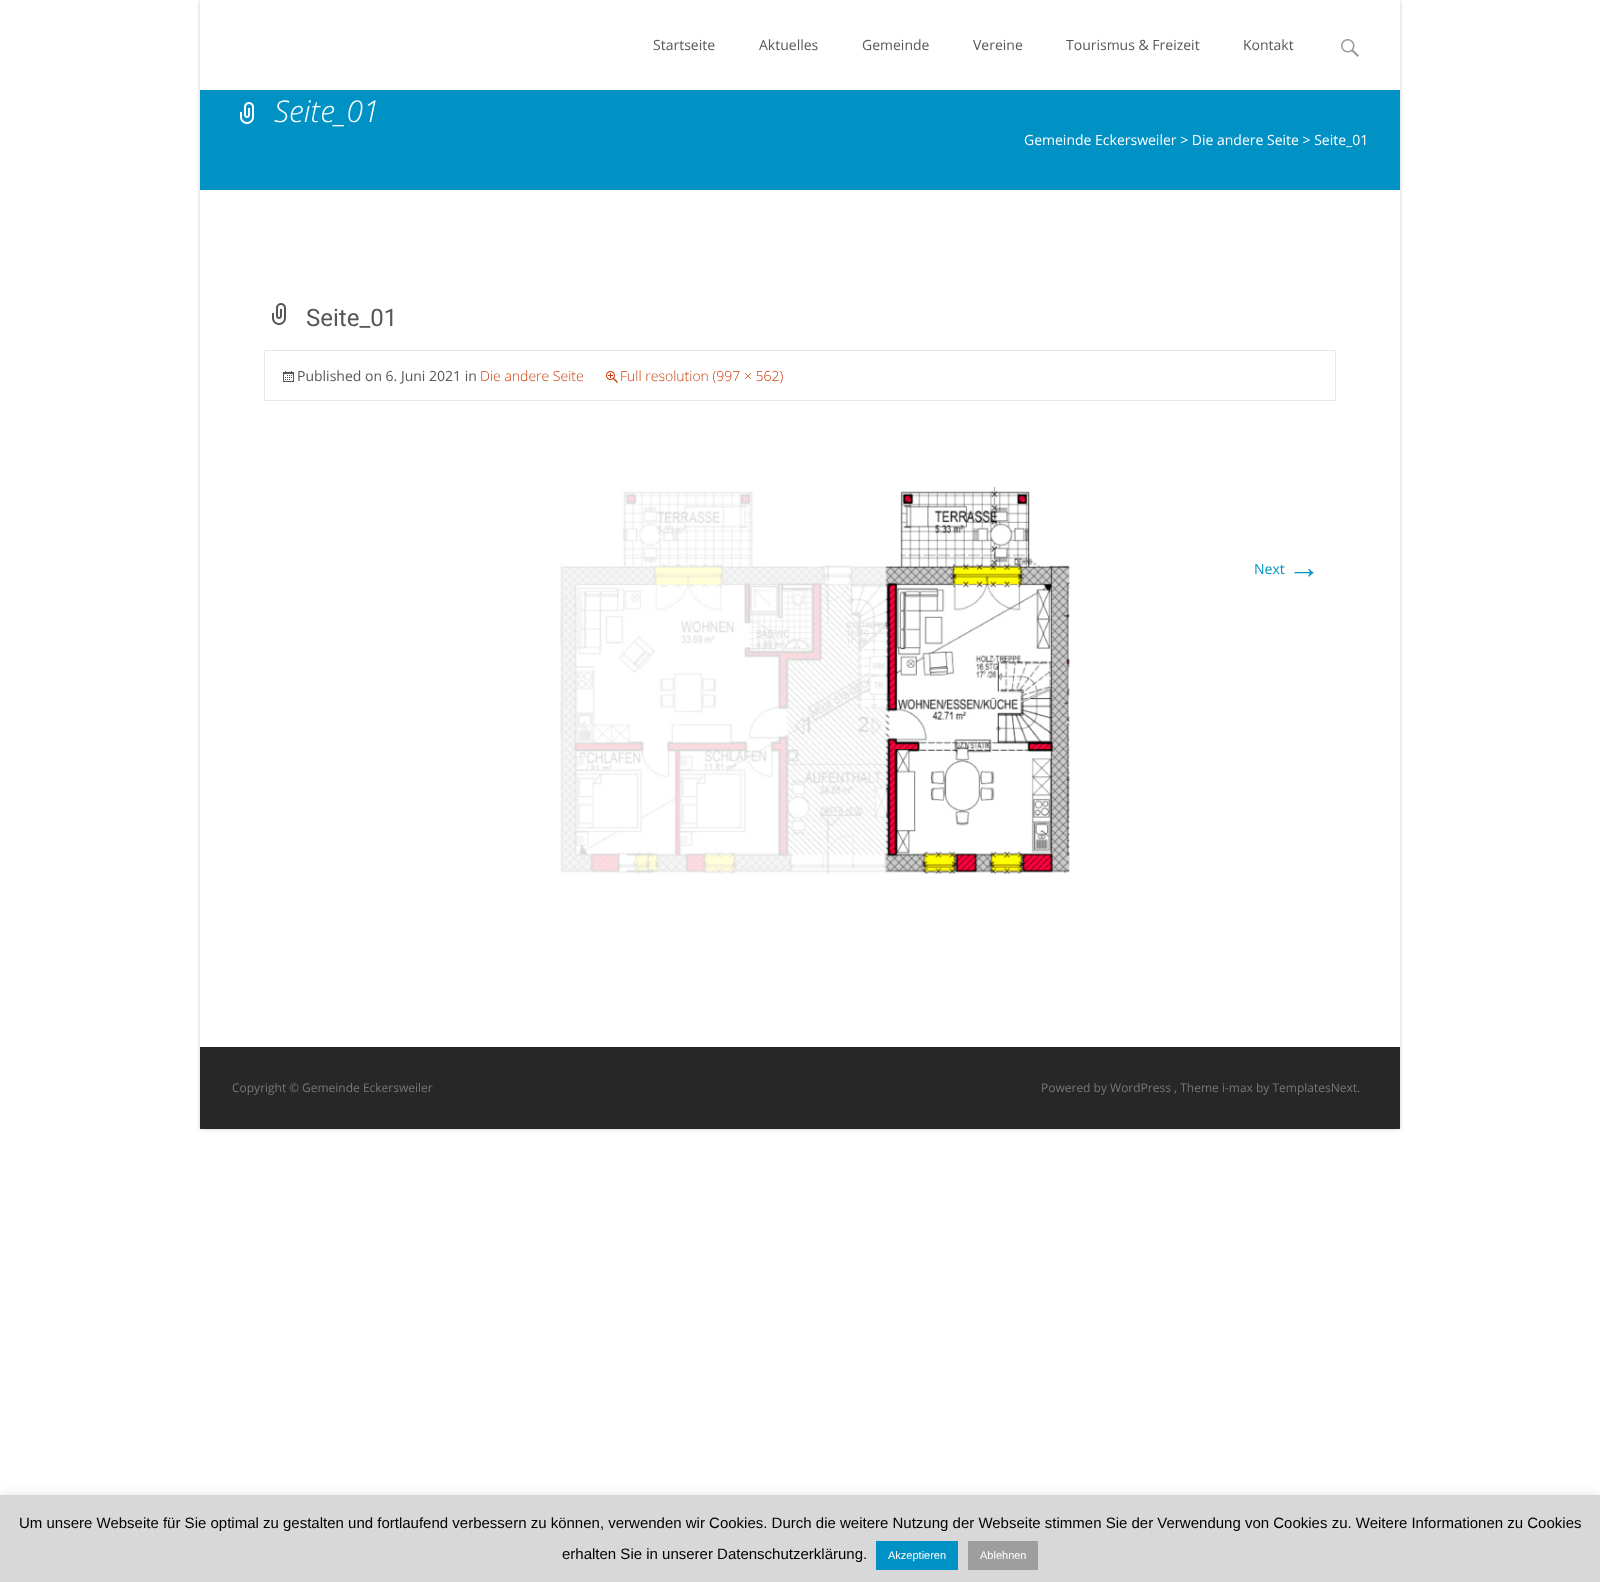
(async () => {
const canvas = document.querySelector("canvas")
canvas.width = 1600
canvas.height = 1582
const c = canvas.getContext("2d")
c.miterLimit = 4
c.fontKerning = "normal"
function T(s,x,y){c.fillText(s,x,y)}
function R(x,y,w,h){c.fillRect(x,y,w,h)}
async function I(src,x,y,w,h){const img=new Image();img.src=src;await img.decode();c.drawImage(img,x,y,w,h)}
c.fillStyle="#fff"
R(0,0,1600,1582)
c.fillStyle="#0000001a"
c.filter="blur(2px)"
c.beginPath()
c.roundRect(200,0,1200,1129,2)
c.fill()
c.filter="none"
c.filter="blur(2px)"
c.beginPath()
c.roundRect(200,0,1200,1129,2)
c.fill()
c.filter="none"
c.fillStyle="#fff"
R(200,0,1200,1047)
c.font="14px Open Sans"
c.fillStyle="#575757"
T("Startseite",653,50)
T("Aktuelles",759,50)
T("Gemeinde",862,50)
T("Vereine",973,50)
T("Tourismus & Freizeit",1066,50)
T("Kontakt",1243,50)
await I("1.png",1341,39,18,18)
c.fillStyle="#0092c5"
R(200,90,1200,100)
await I("2.png",240,102,14,22)
c.font="italic 300 30px Open Sans"
c.fillStyle="#fff"
T("Seite_01",274,122)
c.font="14px Open Sans"
T("Gemeinde Eckersweiler > Die andere Seite > Seite_01",1024,145)
await I("3.png",272,303,14,22)
c.font="24px Roboto"
c.fillStyle="#575757"
T("Seite_01",306,326)
c.strokeStyle="#e7e7e7"
c.strokeRect(264.5,350.5,1071,50)
await I("4.png",283,371,11,11)
c.font="14px Open Sans"
T("Published on 6. Juni 2021 in",297,381)
c.font="300 14px Open Sans"
c.fillStyle="#ca3c08"
T("Die andere Seite",480,381)
await I("5.png",606,371,12,12)
T("Full resolution (997 × 562)",620,381)
await I("6.png",560,487,510,388)
c.font="14px Open Sans"
c.fillStyle="#0092c5"
T("Next",1254,574)
c.font="32px Liberation Sans"
T("→",1288,578)
c.fillStyle="#272727"
R(200,1047,1200,82)
c.font="12px Open Sans"
c.fillStyle="#777"
T("Copyright",232,1092)
c.font="12px 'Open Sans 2'"
T("©",289,1092)
c.font="12px Open Sans"
T("Gemeinde Eckersweiler",302,1092)
T("Powered by WordPress , Theme i-max by TemplatesNext.",1041,1092)
c.fillStyle="#acabab4d"
c.filter="blur(5px)"
c.beginPath()
c.rect(0,1494,1600,87)
c.fill()
c.filter="none"
c.fillStyle="#d8d8d8"
R(0,1495,1600,87)
c.font="15px Liberation Sans"
c.fillStyle="#000"
T("Um unsere Webseite für Sie optimal zu gestalten und fortlaufend verbessern zu können, verwenden wir Cookies. Durch die weitere Nutzung der Webseite stimmen Sie der Verwendung von Cookies zu. Weitere Informationen zu Cookies",19,1528)
T("erhalten Sie in unserer Datenschutzerklärung.",562,1559)
c.fillStyle="#0092c5"
R(876,1541,82,29)
c.font="11px Liberation Sans"
c.fillStyle="#fff"
T("Akzeptieren",888,1559)
c.fillStyle="#9e9e9e"
R(968,1541,70,29)
c.fillStyle="#fff"
T("Ablehnen",980,1559)
})()
